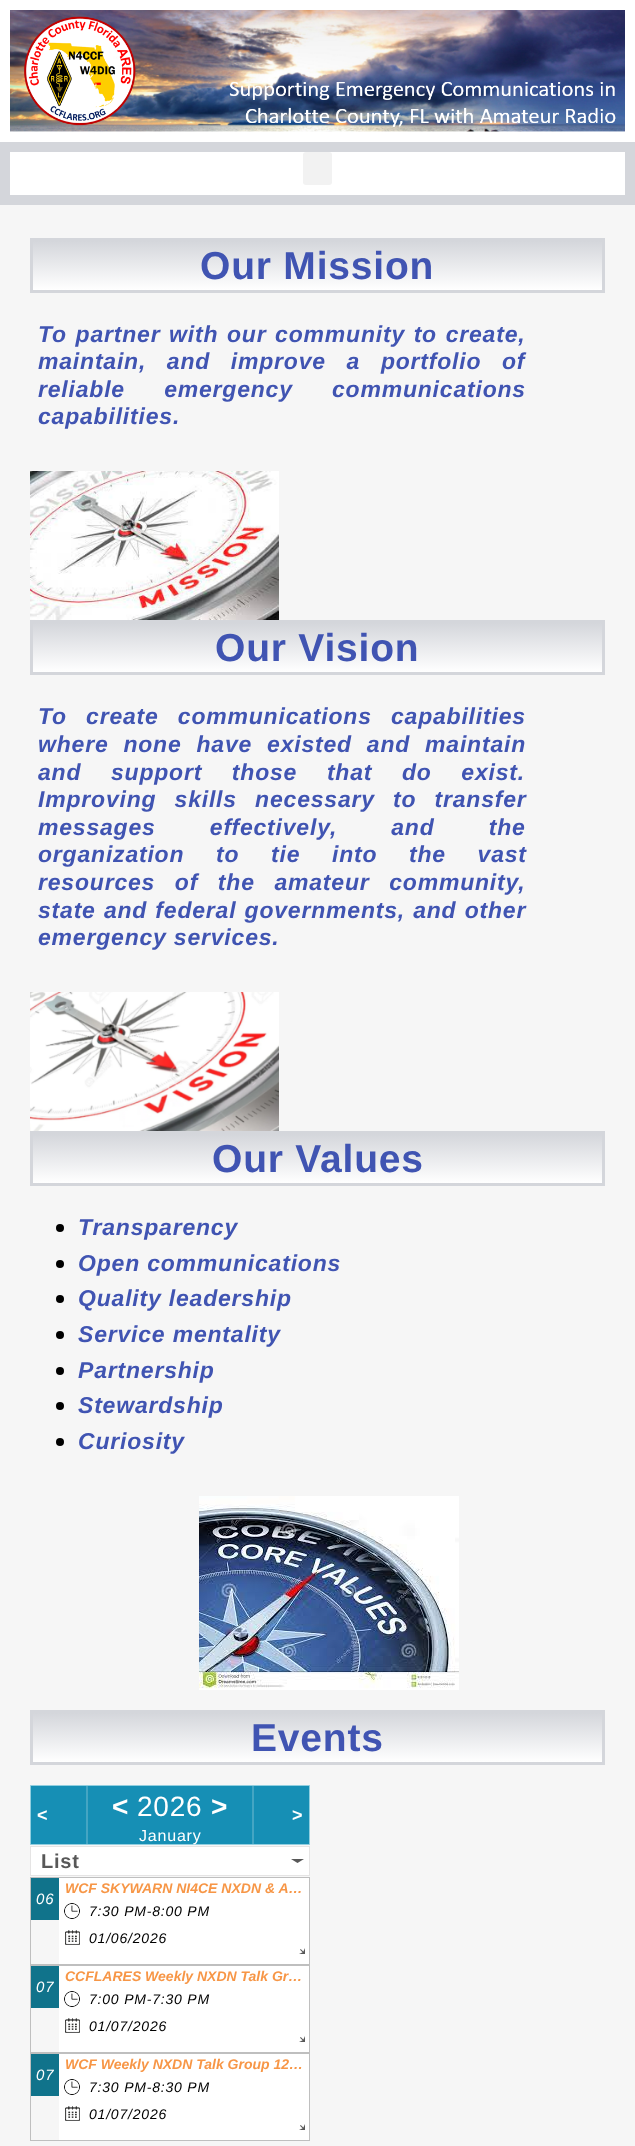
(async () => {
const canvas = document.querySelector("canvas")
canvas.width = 635
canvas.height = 2146
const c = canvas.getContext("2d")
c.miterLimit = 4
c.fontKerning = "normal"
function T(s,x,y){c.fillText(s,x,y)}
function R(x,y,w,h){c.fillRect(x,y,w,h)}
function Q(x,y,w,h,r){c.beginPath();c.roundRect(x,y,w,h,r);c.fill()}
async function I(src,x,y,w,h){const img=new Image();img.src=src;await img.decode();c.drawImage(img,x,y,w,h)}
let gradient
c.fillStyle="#f6f6f6"
R(0,0,635,2146)
c.fillStyle="#fff"
R(0,0,635,142)
await I("1.png",10,10,615,122)
c.fillStyle="#d4d6db"
R(0,142,635,63)
c.fillStyle="#fff"
R(10,152,615,43)
c.fillStyle="#f2f2f2"
Q(303,152,29,33,3)
gradient = c.createLinearGradient(318,241,318,290)
gradient.addColorStop(0,"#d4d6db")
gradient.addColorStop(1,"#fff")
c.fillStyle = gradient
R(33,241,569,49)
c.strokeStyle="#d4d6db"
c.lineWidth=3
c.strokeRect(31.5,239.5,572,52)
c.letterSpacing="0.8px"
c.font="bold 39px Liberation Sans"
c.fillStyle="#4054b2"
T("Our Mission",200,279)
c.wordSpacing="1.5px"
c.font="italic bold 23px Liberation Sans"
T("To partner with our community to create,",38,342)
c.wordSpacing="13.5px"
T("maintain, and improve a portfolio of",38,369)
c.wordSpacing="32px"
T("reliable emergency communications",38,397)
c.wordSpacing="0px"
T("capabilities.",38,424)
await I("2.png",30,471,249,149)
gradient = c.createLinearGradient(318,623,318,672)
gradient.addColorStop(0,"#d4d6db")
gradient.addColorStop(1,"#fff")
c.fillStyle = gradient
R(33,623,569,49)
c.strokeRect(31.5,621.5,572,52)
c.font="bold 39px Liberation Sans"
c.fillStyle="#4054b2"
T("Our Vision",215,661)
c.wordSpacing="12px"
c.font="italic bold 23px Liberation Sans"
T("To create communications capabilities",38,724)
c.wordSpacing="7.75px"
T("where none have existed and maintain",38,752)
c.wordSpacing="22.5px"
T("and support those that do exist.",38,780)
c.wordSpacing="11px"
T("Improving skills necessary to transfer",38,807)
c.wordSpacing="47px"
T("messages effectively, and the",38,835)
c.wordSpacing="24.5px"
T("organization to tie into the vast",38,862)
c.wordSpacing="12.5px"
T("resources of the amateur community,",38,890)
c.wordSpacing="1px"
T("state and federal governments, and other",38,918)
c.wordSpacing="0px"
T("emergency services.",38,945)
await I("3.png",30,992,249,139)
gradient = c.createLinearGradient(318,1134,318,1183)
gradient.addColorStop(0,"#d4d6db")
gradient.addColorStop(1,"#fff")
c.fillStyle = gradient
R(33,1134,569,49)
c.strokeRect(31.5,1132.5,572,52)
c.font="bold 39px Liberation Sans"
c.fillStyle="#4054b2"
T("Our Values",212,1172)
c.fillStyle="#000"
c.beginPath()
c.arc(60,1228,4,0,7)
c.fill()
c.font="italic bold 23px Liberation Sans"
c.fillStyle="#4054b2"
T("Transparency",78,1235)
c.fillStyle="#000"
c.beginPath()
c.arc(60,1264,4,0,7)
c.fill()
c.fillStyle="#4054b2"
T("Open communications",78,1271)
c.fillStyle="#000"
c.beginPath()
c.arc(60,1299,4,0,7)
c.fill()
c.fillStyle="#4054b2"
T("Quality leadership",78,1306)
c.fillStyle="#000"
c.beginPath()
c.arc(60,1335,4,0,7)
c.fill()
c.fillStyle="#4054b2"
T("Service mentality",78,1342)
c.fillStyle="#000"
c.beginPath()
c.arc(60,1371,4,0,7)
c.fill()
c.fillStyle="#4054b2"
T("Partnership",78,1378)
c.fillStyle="#000"
c.beginPath()
c.arc(60,1406,4,0,7)
c.fill()
c.fillStyle="#4054b2"
T("Stewardship",78,1413)
c.fillStyle="#000"
c.beginPath()
c.arc(60,1442,4,0,7)
c.fill()
c.fillStyle="#4054b2"
T("Curiosity",78,1449)
await I("4.png",199,1496,260,194)
gradient = c.createLinearGradient(318,1713,318,1762)
gradient.addColorStop(0,"#d4d6db")
gradient.addColorStop(1,"#fff")
c.fillStyle = gradient
R(33,1713,569,49)
c.strokeRect(31.5,1711.5,572,52)
c.font="bold 39px Liberation Sans"
c.fillStyle="#4054b2"
T("Events",251,1751)
c.fillStyle="#168fb5"
c.beginPath()
c.rect(30.5,1785.5,279,59)
c.fill()
c.strokeStyle="#91cedf"
c.lineWidth=1
c.stroke()
c.fillStyle="#44a5c3"
R(86,1786,2,58)
c.font="bold 18px Liberation Sans"
c.fillStyle="#fff"
T("<",37,1821)
c.fillStyle="#44a5c3"
R(252,1786,2,58)
c.font="bold 28px Liberation Sans"
c.fillStyle="#fff"
T("<",112,1816)
c.font="28px Liberation Sans"
T("2026",137,1816)
c.font="bold 28px Liberation Sans"
T(">",211,1816)
c.font="16px Liberation Sans"
T("January",139,1841)
c.font="bold 18px Liberation Sans"
T(">",292,1821)
R(31,1847,278,28)
await I("5.png",291,1859,13,4)
c.strokeStyle="#e5e4e4"
c.strokeRect(30.5,1846.5,279,29)
c.font="bold 20px Liberation Sans"
c.fillStyle="#585858"
T("List",41,1868)
c.strokeStyle="#bfbfbf"
c.strokeRect(30.5,1877.5,279,87)
c.fillStyle="#10738b"
R(31,1878,28,42)
c.font="italic 15px Liberation Sans"
c.fillStyle="#fff"
T("06",36,1904)
R(59,1878,250,86)
c.letterSpacing="0px"
c.font="italic bold 14px Liberation Sans"
c.fillStyle="#f79646"
T("WCF SKYWARN NI4CE NXDN & A…",65,1893)
await I("6.png",64,1903,16,16)
c.letterSpacing="0.8px"
c.font="italic 14px Liberation Sans"
c.fillStyle="#000"
T("7:30 PM-8:00 PM",89,1916)
await I("7.png",65,1930,15,15)
T("01/06/2026",89,1943)
await I("8.png",299,1948,6,6)
c.strokeRect(30.5,1965.5,279,87)
c.fillStyle="#10738b"
R(31,1966,28,42)
c.font="italic 15px Liberation Sans"
c.fillStyle="#fff"
T("07",36,1992)
R(59,1966,250,86)
c.letterSpacing="0px"
c.font="italic bold 14px Liberation Sans"
c.fillStyle="#f79646"
T("CCFLARES Weekly NXDN Talk Gr…",65,1981)
await I("6.png",64,1991,16,16)
c.letterSpacing="0.8px"
c.font="italic 14px Liberation Sans"
c.fillStyle="#000"
T("7:00 PM-7:30 PM",89,2004)
await I("7.png",65,2018,15,15)
T("01/07/2026",89,2031)
await I("8.png",299,2036,6,6)
c.strokeRect(30.5,2053.5,279,87)
c.fillStyle="#10738b"
R(31,2054,28,42)
c.font="italic 15px Liberation Sans"
c.fillStyle="#fff"
T("07",36,2080)
R(59,2054,250,86)
c.letterSpacing="0px"
c.font="italic bold 14px Liberation Sans"
c.fillStyle="#f79646"
T("WCF Weekly NXDN Talk Group 12…",65,2069)
await I("6.png",64,2079,16,16)
c.letterSpacing="0.8px"
c.font="italic 14px Liberation Sans"
c.fillStyle="#000"
T("7:30 PM-8:30 PM",89,2092)
await I("7.png",65,2106,15,15)
T("01/07/2026",89,2119)
await I("8.png",299,2124,6,6)
})()
